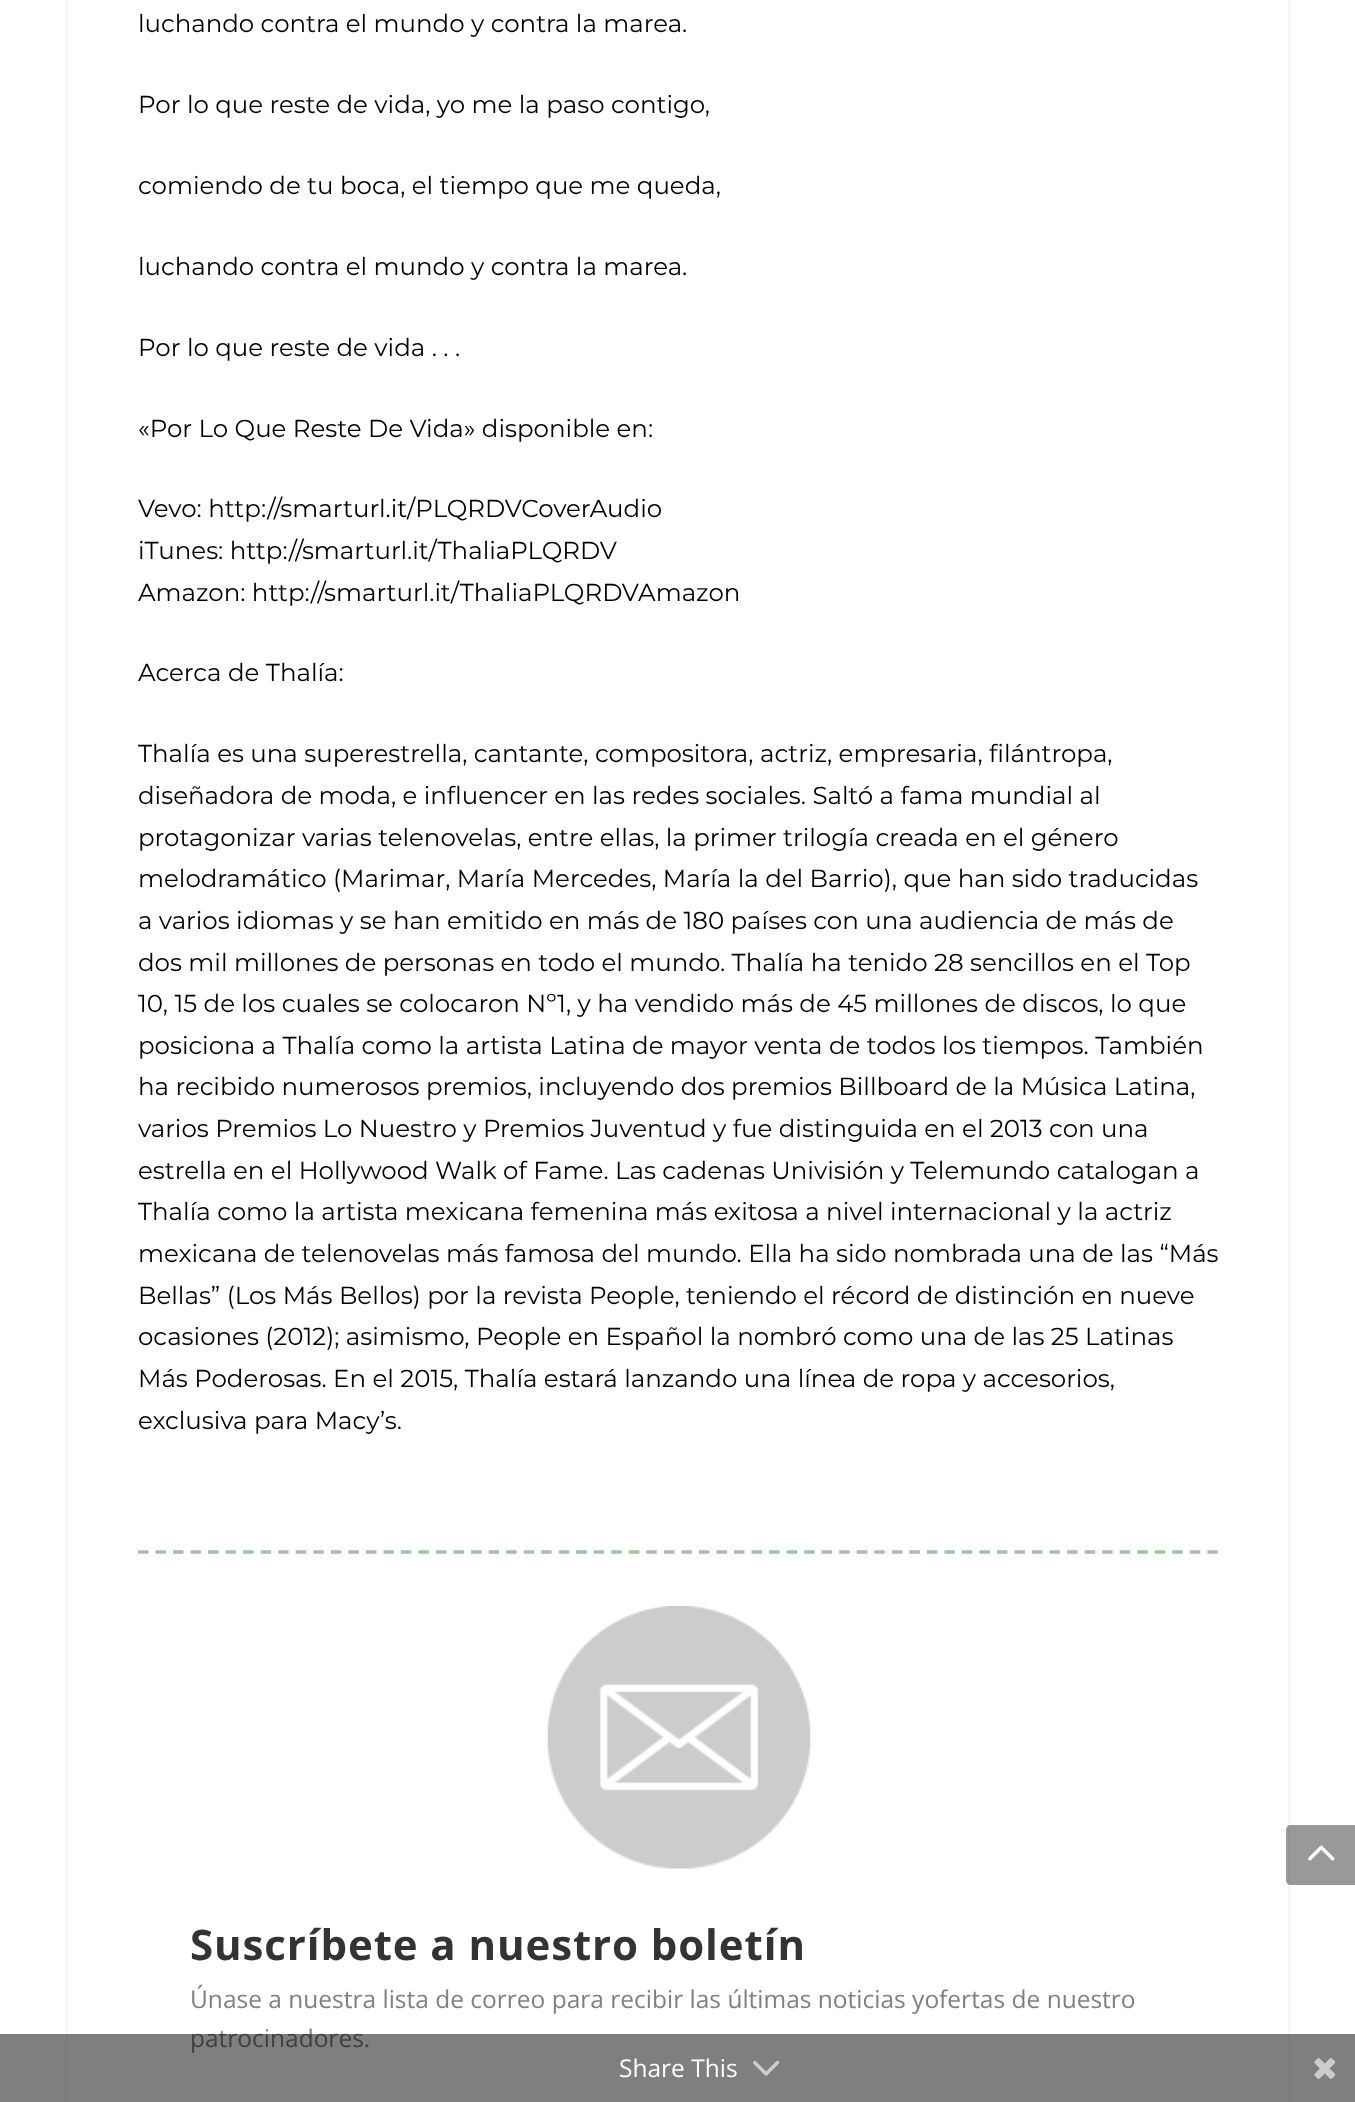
(async () => {
const canvas = document.querySelector("canvas")
canvas.width = 1355
canvas.height = 2102
const c = canvas.getContext("2d")
c.miterLimit = 4
c.fontKerning = "normal"
function T(s,x,y){c.fillText(s,x,y)}
function R(x,y,w,h){c.fillRect(x,y,w,h)}
async function I(src,x,y,w,h){const img=new Image();img.src=src;await img.decode();c.drawImage(img,x,y,w,h)}
let path
c.fillStyle="#fff"
R(0,0,1355,2102)
c.fillStyle="#0000001a"
c.filter="blur(2.5px)"
c.beginPath()
c.roundRect(68,-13,1220,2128,5)
c.fill()
c.filter="none"
c.fillStyle="#fff"
R(68,0,1220,2102)
c.font="24.5px Montserrat"
c.fillStyle="#000"
T("luchando contra el mundo y contra la marea.",138,32)
T("Por lo que reste de vida, yo me la paso contigo,",138,113)
T("comiendo de tu boca, el tiempo que me queda,",138,194)
T("luchando contra el mundo y contra la marea.",138,275)
T("Por lo que reste de vida . . .",138,356)
T("«Por Lo Que Reste De Vida» disponible en:",138,437)
T("Vevo: http://smarturl.it/PLQRDVCoverAudio",138,517)
T("iTunes: http://smarturl.it/ThaliaPLQRDV",138,559)
T("Amazon: http://smarturl.it/ThaliaPLQRDVAmazon",138,601)
T("Acerca de Thalía:",138,681)
T("Thalía es una superestrella, cantante, compositora, actriz, empresaria, filántropa,",138,762)
T("diseñadora de moda, e influencer en las redes sociales. Saltó a fama mundial al",138,804)
T("protagonizar varias telenovelas, entre ellas, la primer trilogía creada en el género",138,846)
T("melodramático (Marimar, María Mercedes, María la del Barrio), que han sido traducidas",138,887)
T("a varios idiomas y se han emitido en más de 180 países con una audiencia de más de",138,929)
T("dos mil millones de personas en todo el mundo. Thalía ha tenido 28 sencillos en el Top",138,971)
T("10, 15 de los cuales se colocaron Nº1, y ha vendido más de 45 millones de discos, lo que",138,1012)
T("posiciona a Thalía como la artista Latina de mayor venta de todos los tiempos. También",138,1054)
T("ha recibido numerosos premios, incluyendo dos premios Billboard de la Música Latina,",138,1095)
T("varios Premios Lo Nuestro y Premios Juventud y fue distinguida en el 2013 con una",138,1137)
T("estrella en el Hollywood Walk of Fame. Las cadenas Univisión y Telemundo catalogan a",138,1179)
T("Thalía como la artista mexicana femenina más exitosa a nivel internacional y la actriz",138,1220)
T("mexicana de telenovelas más famosa del mundo. Ella ha sido nombrada una de las “Más",138,1262)
T("Bellas” (Los Más Bellos) por la revista People, teniendo el récord de distinción en nueve",138,1304)
T("ocasiones (2012); asimismo, People en Español la nombró como una de las 25 Latinas",138,1345)
T("Más Poderosas. En el 2015, Thalía estará lanzando una línea de ropa y accesorios,",138,1387)
T("exclusiva para Macy’s.",138,1429)
path = new Path2D("M138 1552h1080")
c.strokeStyle="#a0c49d"
c.lineWidth=3.5
c.setLineDash([10.5,7.03])
c.stroke(path)
await I("1.png",547,1606,264,263)
c.letterSpacing="0.9px"
c.font="bold 42px Open Sans"
c.fillStyle="#333"
T("Suscríbete a nuestro boletín",190,1960)
c.letterSpacing="0px"
c.font="24.5px Open Sans"
c.fillStyle="#808080"
T("Únase a nuestra lista de correo para recibir las últimas noticias yofertas de nuestro",190,2008)
T("patrocinadores.",190,2047)
c.fillStyle="#00000066"
path = new Path2D("M1291 1825h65v60h-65c-3 0-5-2-5-5v-50c0-3 2-5 5-5z")
c.fill(path)
await I("2.png",1308,1845,27,16)
c.fillStyle="#00000080"
R(0,2034,1355,68)
c.fillStyle="#fff"
T("Share This",619,2077)
await I("3.png",753,2060,27,16)
await I("4.png",1314,2058,22,21)
})()
